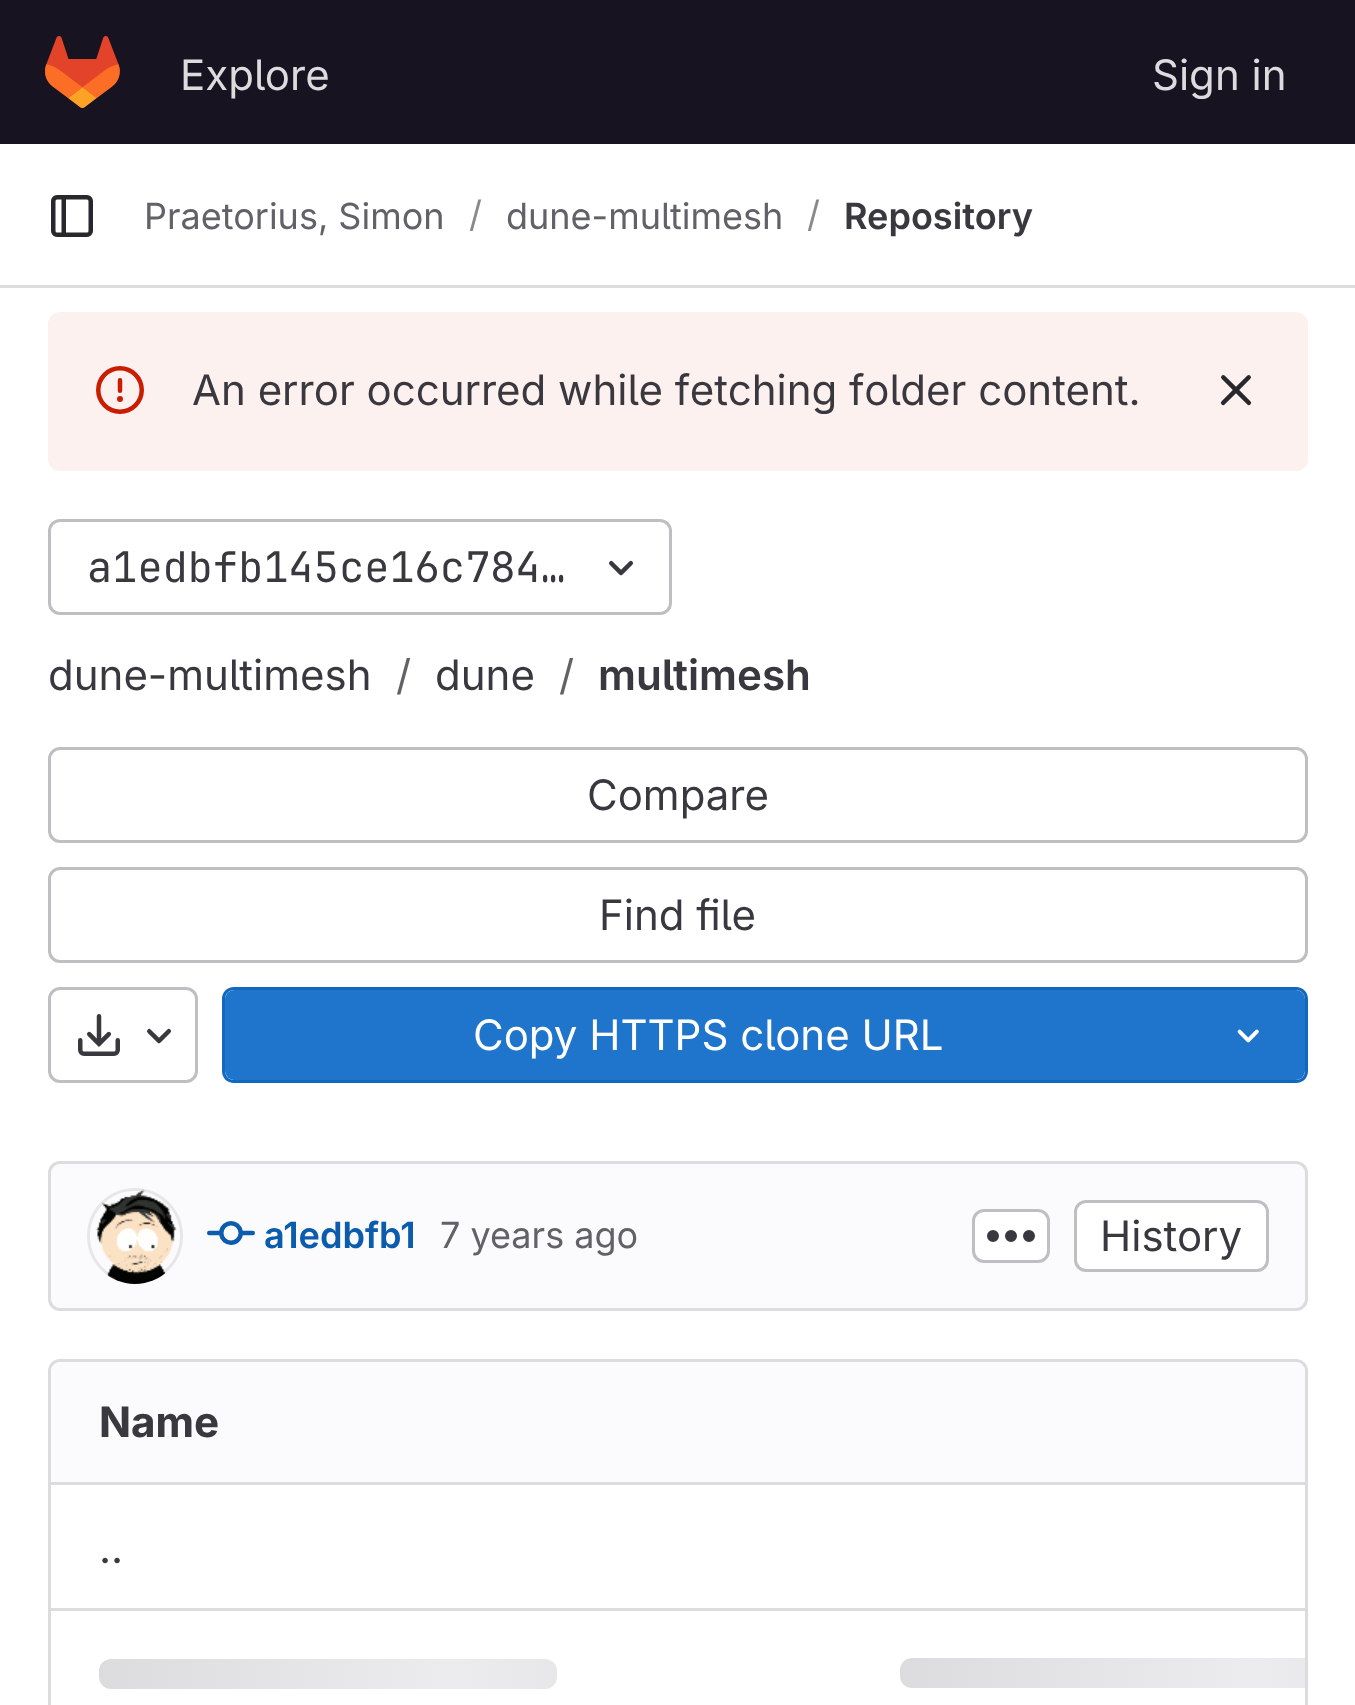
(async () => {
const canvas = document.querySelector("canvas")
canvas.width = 1355
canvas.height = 1705
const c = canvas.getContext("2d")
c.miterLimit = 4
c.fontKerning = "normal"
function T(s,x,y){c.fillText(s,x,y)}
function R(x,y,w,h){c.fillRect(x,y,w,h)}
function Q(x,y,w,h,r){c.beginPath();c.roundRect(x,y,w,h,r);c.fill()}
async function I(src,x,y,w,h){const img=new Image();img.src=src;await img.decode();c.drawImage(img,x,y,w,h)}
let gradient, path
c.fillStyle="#fff"
R(0,0,1355,1705)
c.fillStyle="#171321"
R(0,0,1355,144)
await I("1.png",45,36,75,72)
c.font="42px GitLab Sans"
c.fillStyle="#dcdcde"
T("Explore",180,90)
T("Sign in",1152,90)
R(0,285,1355,3)
await I("2.png",51,195,42,42)
c.font="36px GitLab Sans"
c.fillStyle="#626168"
T("Praetorius, Simon",144,229)
c.fillStyle="#89888d"
T("/",469,227)
c.fillStyle="#626168"
T("dune-multimesh",506,229)
c.fillStyle="#89888d"
T("/",807,227)
c.font="600 36px GitLab Sans"
c.fillStyle="#3a383f"
T("Repository",844,229)
c.fillStyle="#fcf1ef"
Q(48,312,1260,159,12)
await I("3.png",96,366,48,48)
c.font="42px GitLab Sans"
c.fillStyle="#3a383f"
T("An error occurred while fetching folder content.",192,405)
await I("4.png",1220,375,32,31)
c.beginPath()
c.roundRect(49.5,520.5,621,93,10.5)
c.strokeStyle="#bfbfc3"
c.lineWidth=3
c.stroke()
c.font="42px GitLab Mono"
T("a1edbfb145ce16c784…",87,582)
await I("5.png",608,560,26,16)
c.font="42px GitLab Sans"
T("dune-multimesh",48,690)
c.fillStyle="#626168"
T("/",396,690)
c.fillStyle="#3a383f"
T("dune",435,690)
c.fillStyle="#626168"
T("/",559,690)
c.font="600 42px GitLab Sans"
c.fillStyle="#3a383f"
T("multimesh",598,690)
c.beginPath()
c.roundRect(49.5,748.5,1257,93,10.5)
c.stroke()
c.font="42px GitLab Sans"
T("Compare",587,810)
c.beginPath()
c.roundRect(49.5,868.5,1257,93,10.5)
c.stroke()
T("Find file",599,930)
c.beginPath()
c.roundRect(49.5,988.5,147,93,10.5)
c.stroke()
await I("6.png",78,1014,42,42)
await I("5.png",146,1028,26,16)
c.fillStyle="#1f75cb"
c.beginPath()
c.roundRect(225,990,966,90,[9,0,0,9])
c.fill()
c.fillStyle="#1068bf"
path = new Path2D("M234 987h957v96h-957c-7 0-12-5-12-12v-72c0-7 5-12 12-12zm0 3h957v90h-957c-5 0-9-4-9-9v-72c0-5 4-9 9-9z")
c.fill(path,"evenodd")
c.fillStyle="#fff"
T("Copy HTTPS clone URL",473,1050)
c.fillStyle="#1f75cb"
c.beginPath()
c.roundRect(1191,990,114,90,[0,9,9,0])
c.fill()
c.fillStyle="#1068bf"
path = new Path2D("M1191 987h105c7 0 12 5 12 12v72c0 7-5 12-12 12h-105zm0 3h105c5 0 9 4 9 9v72c0 5-4 9-9 9h-105z")
c.fill(path,"evenodd")
await I("7.png",1237,1029,22,14)
c.fillStyle="#fbfafd"
c.beginPath()
c.roundRect(49.5,1162.5,1257,147,10.5)
c.fill()
c.strokeStyle="#dcdcde"
c.stroke()
await I("8.png",95,1189,82,95)
c.beginPath()
c.arc(135,1236,46.5,0,7)
c.strokeStyle="#05050614"
c.stroke()
await I("9.png",207,1221,48,24)
c.font="600 36px GitLab Sans"
c.fillStyle="#0b5cad"
T("a1edbfb1",264,1248)
c.font="36px GitLab Sans"
c.fillStyle="#626168"
T("7 years ago",440,1248)
c.fillStyle="#fff"
c.beginPath()
c.roundRect(973.5,1210.5,75,51,10.5)
c.fill()
c.strokeStyle="#bfbfc3"
c.stroke()
await I("10.png",987,1230,48,12)
c.beginPath()
c.roundRect(1075.5,1201.5,192,69,10.5)
c.fill()
c.stroke()
c.font="42px GitLab Sans"
c.fillStyle="#3a383f"
T("History",1100,1251)
c.beginPath()
c.roundRect(49.5,1360.5,1257,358,10.5)
c.strokeStyle="#dcdcde"
c.stroke()
c.fillStyle="#fbfafd"
c.beginPath()
c.roundRect(51,1362,801,123,[9,0,0,0])
c.fill()
c.font="bold 42px GitLab Sans"
c.fillStyle="#3a383f"
T("Name",99,1437)
c.fillStyle="#fbfafd"
c.beginPath()
c.roundRect(852,1362,453,123,[0,9,0,0])
c.fill()
c.fillStyle="#dcdcde"
R(51,1608,1254,3)
R(51,1482,1254,3)
c.font="42px GitLab Sans"
c.fillStyle="#3a383f"
T("..",99,1563)
gradient = c.createLinearGradient(99,1659,804,1659)
gradient.addColorStop(0,"#dcdcde")
gradient.addColorStop(.5,"#ececef")
gradient.addColorStop(1,"#dcdcde")
c.fillStyle = gradient
Q(99,1659,458,30,12)
gradient = c.createLinearGradient(900,1658,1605,1658)
gradient.addColorStop(0,"#dcdcde")
gradient.addColorStop(.5,"#ececef")
gradient.addColorStop(1,"#dcdcde")
c.fillStyle = gradient
c.beginPath()
c.roundRect(900,1658,405,30,[12,0,0,12])
c.fill()
})()
